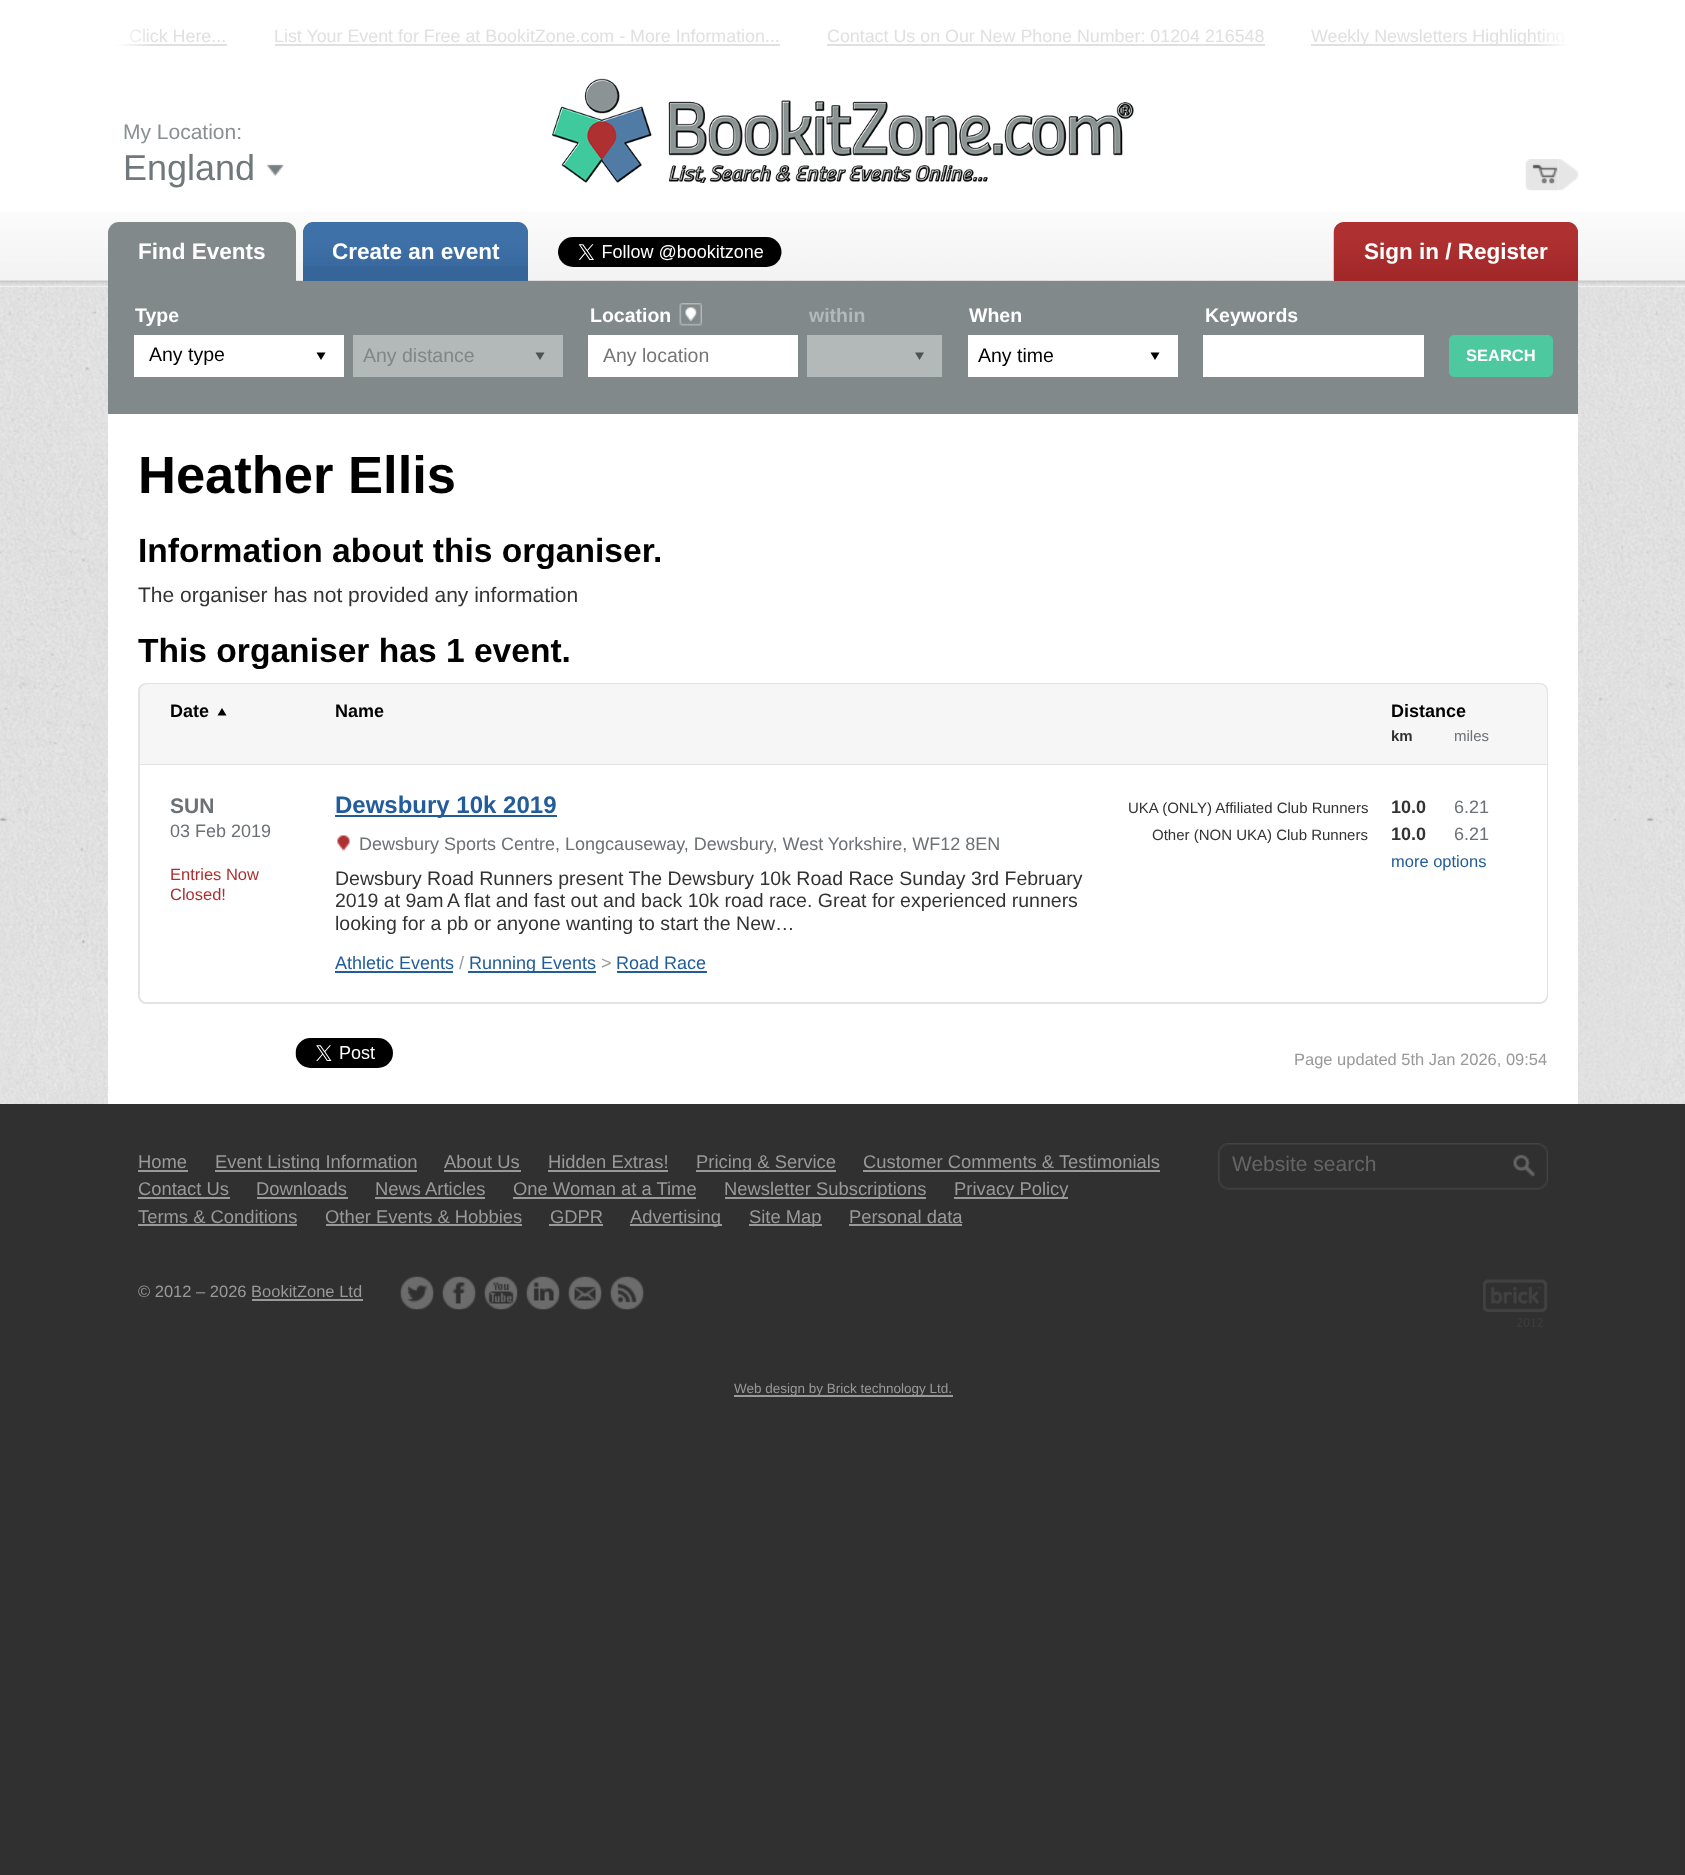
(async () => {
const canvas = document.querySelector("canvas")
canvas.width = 1685
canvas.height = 1875
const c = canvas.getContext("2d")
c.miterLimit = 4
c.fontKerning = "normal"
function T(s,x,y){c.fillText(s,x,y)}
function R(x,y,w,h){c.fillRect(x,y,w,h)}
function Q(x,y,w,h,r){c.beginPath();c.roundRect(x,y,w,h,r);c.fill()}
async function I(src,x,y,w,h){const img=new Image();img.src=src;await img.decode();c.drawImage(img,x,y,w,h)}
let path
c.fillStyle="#303030"
R(0,0,1685,1875)
await I("1.png",0,287,1685,817)
c.fillStyle="#fff"
R(0,0,1685,287)
await I("2.png",0,212,1685,75)
c.font="17.85px Liberation Sans"
c.fillStyle="#e0e0e0"
T("Click Here...",129,42)
R(108,44,119,2)
await I("3.png",108,29,41,17)
T("List Your Event for Free at BookitZone.com - More Information...",274,42)
R(275,44,505,2)
T("Contact Us on Our New Phone Number: 01204 216548",827,42)
R(827,44,438,2)
R(1311,44,267,2)
T("Weekly Newsletters Highlighting",1311,42)
await I("4.png",1537,29,41,17)
c.font="21px Liberation Sans"
c.fillStyle="#899092"
T("My Location:",123,139)
c.font="36px Liberation Sans"
c.fillStyle="#6f797c"
T("England",123,180)
await I("5.png",266,164,18,12)
await I("6.png",1525,159,34,32)
await I("7.png",1558,159,20,32)
await I("8.png",552,78,582,105)
c.fillStyle="#81898b"
c.beginPath()
c.roundRect(108,222,188,59,[11,11,0,0])
c.fill()
c.font="bold 22.5px Liberation Sans"
c.fillStyle="#fff"
T("Find Events",138,259)
c.fillStyle="#36659a"
c.beginPath()
c.roundRect(303,222,225,59,[11,11,0,0])
c.fill()
await I("9.png",303,222,225,44)
c.fillStyle="#fff"
T("Create an event",332,259)
await I("10.png",558,237,224,30)
c.fillStyle="#a32729"
c.beginPath()
c.roundRect(1334,222,244,59,[11,11,0,0])
c.fill()
await I("11.png",1333,222,245,59)
c.fillStyle="#fff"
T("Sign in / Register",1364,259)
c.fillStyle="#81898b"
R(108,281,1470,133)
c.font="bold 19.5px Liberation Sans"
c.fillStyle="#fff"
T("Type",135,322)
R(134,335,210,42)
c.font="19.5px Liberation Sans"
c.fillStyle="#000"
T("Any type",149,361)
path = new Path2D("M316.5 352.5h9l-4.5 7.5z")
c.fill(path)
c.fillStyle="#b3b8b9"
R(353,335,210,42)
c.fillStyle="#818688"
T("Any distance",363,362)
c.fillStyle="#4d5253"
path = new Path2D("M535.5 352.5h9l-4.5 7.5z")
c.fill(path)
c.font="bold 19.5px Liberation Sans"
c.fillStyle="#fff"
T("Location",590,322)
await I("12.png",679,303,23,23)
R(588,335,210,42)
c.font="19.5px Liberation Sans"
c.fillStyle="#757575"
T("Any location",603,362)
c.font="bold 19.5px Liberation Sans"
c.fillStyle="#b3b8b9"
T("within",809,322)
R(807,335,135,42)
c.fillStyle="#4d5253"
path = new Path2D("M915 352.5h9l-4.5 7.5z")
c.fill(path)
c.fillStyle="#fff"
T("When",969,322)
R(968,335,210,42)
c.font="19.5px Liberation Sans"
c.fillStyle="#000"
T("Any time",978,362)
path = new Path2D("M1150.5 352.5h9l-4.5 7.5z")
c.fill(path)
c.font="bold 19.5px Liberation Sans"
c.fillStyle="#fff"
T("Keywords",1205,322)
R(1203,335,221,42)
c.fillStyle="#4ec99f"
Q(1449,335,104,42,5)
c.font="bold 16.5px Liberation Sans"
c.fillStyle="#fff"
T("SEARCH",1466,361)
R(108,414,1470,690)
c.font="bold 52.5px Liberation Sans"
c.fillStyle="#000"
T("Heather Ellis",138,493)
c.font="bold 33.6px Liberation Sans"
T("Information about this organiser.",138,562)
c.font="21px Liberation Sans"
c.fillStyle="#333"
T("The organiser has not provided any information",138,602)
c.font="bold 33.6px Liberation Sans"
c.fillStyle="#000"
T("This organiser has 1 event.",138,662)
c.beginPath()
c.roundRect(139,684,1408,319,7)
c.strokeStyle="#e3e3e3"
c.lineWidth=2
c.stroke()
c.fillStyle="#f6f6f6"
c.beginPath()
c.roundRect(140,684,1407,81,[8,8,0,0])
c.fill()
c.fillStyle="#e3e3e3"
R(140,764,1407,1)
c.font="bold 18px Liberation Sans"
c.fillStyle="#000"
T("Date",170,717)
path = new Path2D("M226.5 715.5h-9l4.5-7.5z")
c.fill(path)
T("Name",335,717)
T("Distance",1391,717)
c.font="bold 15px Liberation Sans"
c.fillStyle="#333"
T("km",1391,741)
c.font="15px Liberation Sans"
c.fillStyle="#6b7174"
T("miles",1454,741)
c.fillStyle="#fff"
c.beginPath()
c.roundRect(140,765,1407,237,[0,0,8,8])
c.fill()
c.font="bold 21px Liberation Sans"
c.fillStyle="#6b7174"
T("SUN",170,813)
c.font="18px Liberation Sans"
T("03 Feb 2019",170,837)
c.font="16.5px Liberation Sans"
c.fillStyle="#ac2f30"
T("Entries Now",170,880)
T("Closed!",170,900)
c.fillStyle="#225c9b"
R(335,815,222,2)
c.font="bold 24px Liberation Sans"
T("Dewsbury 10k 2019",335,813)
await I("13.png",337,835,13,16)
c.font="18px Liberation Sans"
c.fillStyle="#6b7174"
T("Dewsbury Sports Centre, Longcauseway, Dewsbury, West Yorkshire, WF12 8EN",359,850)
c.font="19.5px Liberation Sans"
c.fillStyle="#333"
T("Dewsbury Road Runners present The Dewsbury 10k Road Race Sunday 3rd February",335,885)
T("2019 at 9am",335,907)
T("A flat and fast out and back 10k road race. Great for experienced runners",447,907)
T("looking for a pb or anyone wanting to start the New…",335,930)
c.font="18px Liberation Sans"
c.fillStyle="#225c9b"
T("Athletic Events",335,969)
R(335,971,118,2)
c.fillStyle="#999"
T("/",459,969)
c.fillStyle="#225c9b"
R(468,971,128,2)
T("Running Events",469,969)
c.fillStyle="#999"
T(">",601,969)
c.fillStyle="#225c9b"
T("Road Race",616,969)
R(617,971,90,2)
c.save()
c.beginPath()
c.rect(1121,800,270,16)
c.clip()
c.font="15px Liberation Sans"
c.fillStyle="#333"
T("UKA (ONLY) Affiliated Club Runners",1128,813)
c.restore()
c.font="bold 18px Liberation Sans"
c.fillStyle="#333"
T("10.0",1391,813)
c.font="18px Liberation Sans"
c.fillStyle="#6b7174"
T("6.21",1454,813)
c.save()
c.beginPath()
c.rect(1121,827,270,16)
c.clip()
c.font="15px Liberation Sans"
c.fillStyle="#333"
T("Other (NON UKA) Club Runners",1152,840)
c.restore()
c.font="bold 18px Liberation Sans"
c.fillStyle="#333"
T("10.0",1391,840)
c.font="18px Liberation Sans"
c.fillStyle="#6b7174"
T("6.21",1454,840)
c.font="16.5px Liberation Sans"
c.fillStyle="#225c9b"
T("more options",1391,867)
await I("14.png",295,1038,98,30)
c.fillStyle="#999"
T("Page updated 5th Jan 2026, 09:54",1294,1065)
c.font="18.4px Liberation Sans"
T("Home",138,1168)
R(138,1170,50,2)
R(215,1170,202,2)
T("Event Listing Information",215,1168)
T("About Us",444,1168)
R(444,1170,77,2)
T("Hidden Extras!",548,1168)
R(548,1170,120,2)
R(696,1170,140,2)
T("Pricing & Service",696,1168)
T("Customer Comments & Testimonials",863,1168)
R(863,1170,297,2)
T("Contact Us",138,1195)
R(138,1197,92,2)
T("Downloads",256,1195)
R(257,1197,91,2)
T("News Articles",375,1195)
R(375,1197,110,2)
T("One Woman at a Time",513,1195)
R(513,1197,183,2)
R(725,1197,201,2)
T("Newsletter Subscriptions",724,1195)
R(954,1197,114,2)
T("Privacy Policy",954,1195)
T("Terms & Conditions",138,1223)
R(138,1224,159,2)
T("Other Events & Hobbies",325,1223)
R(326,1224,196,2)
T("GDPR",550,1223)
R(549,1224,54,2)
R(630,1224,92,2)
T("Advertising",630,1223)
R(749,1224,73,2)
T("Site Map",749,1223)
T("Personal data",849,1223)
R(849,1224,113,2)
await I("15.png",1218,1143,330,47)
c.font="21px Liberation Sans"
c.fillStyle="#656565"
T("Website search",1232,1171)
await I("16.png",1513,1154,22,23)
c.font="16.5px Liberation Sans"
c.fillStyle="#999"
T("© 2012 – 2026 BookitZone Ltd",138,1297)
R(252,1299,111,2)
await I("17.png",400,1276,34,34)
await I("18.png",442,1276,34,34)
await I("19.png",484,1276,34,34)
await I("20.png",526,1276,34,34)
await I("21.png",568,1276,34,34)
await I("22.png",610,1276,34,34)
await I("23.png",1483,1279,65,48)
R(734,1395,219,2)
c.font="13.5px Liberation Sans"
T("Web design by Brick technology Ltd.",734,1393)
})()
